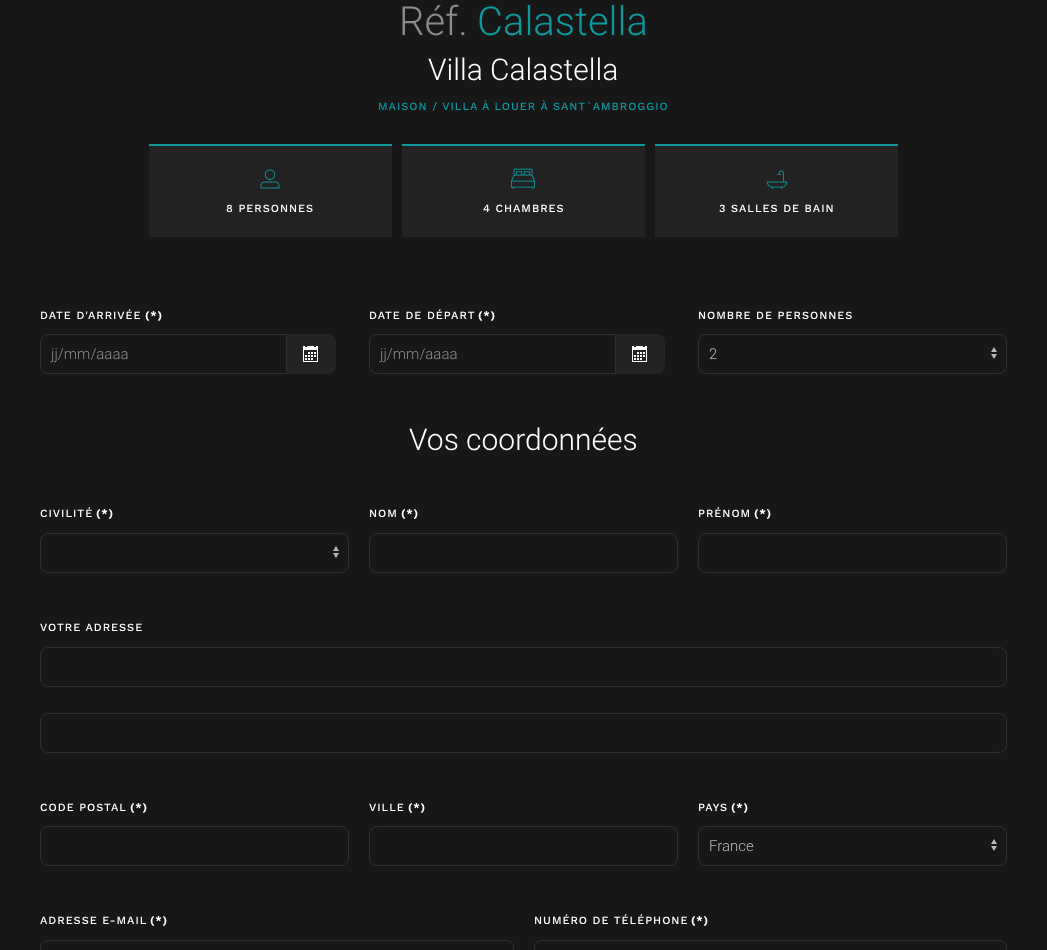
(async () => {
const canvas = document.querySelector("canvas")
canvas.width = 1047
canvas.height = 950
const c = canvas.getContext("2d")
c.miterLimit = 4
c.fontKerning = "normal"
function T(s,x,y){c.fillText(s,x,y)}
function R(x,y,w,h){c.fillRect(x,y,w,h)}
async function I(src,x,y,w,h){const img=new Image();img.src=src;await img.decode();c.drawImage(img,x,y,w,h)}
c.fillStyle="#171717"
R(0,0,1047,950)
c.font="300 40px Roboto"
c.fillStyle="#8b8b8b"
T("Réf.",399,35)
c.fillStyle="#0c989d"
T("Calastella",477,35)
c.font="300 30px Roboto"
c.fillStyle="#fff"
T("Villa Calastella",428,80)
c.letterSpacing="1px"
c.font="500 11px Work Sans"
c.fillStyle="#0c989d"
T("MAISON / VILLA",378,110)
T("À LOUER À SANT`AMBROGGIO",482,110)
c.fillStyle="#222"
R(149,146,243,91)
c.fillStyle="#0c989d"
R(149,144,243,2)
await I("1.png",260,169,20,20)
c.fillStyle="#fff"
T("8 PERSONNES",226,212)
c.fillStyle="#222"
R(402,146,243,91)
c.fillStyle="#0c989d"
R(402,144,243,2)
await I("2.png",511,168,24,22)
c.fillStyle="#fff"
T("4 CHAMBRES",483,212)
c.fillStyle="#222"
R(655,146,243,91)
c.fillStyle="#0c989d"
R(655,144,243,2)
await I("3.png",766,170,22,20)
c.fillStyle="#fff"
T("3 SALLES DE BAIN",719,212)
T("DATE D'ARRIVÉE",40,319)
c.font="bold 11px Work Sans"
T("(*)",145,319)
c.beginPath()
c.roundRect(40.5,334.5,246,39,[7.5,0,0,7.5])
c.strokeStyle="#2e2e2e"
c.stroke()
c.letterSpacing="0px"
c.font="300 15px Roboto"
c.fillStyle="#8b8b8b"
T("jj/mm/aaaa",51,359)
c.fillStyle="#232323"
c.beginPath()
c.roundRect(287,334,49,40,[0,8,8,0])
c.fill()
await I("4.png",303,346,15,16)
c.letterSpacing="1px"
c.font="500 11px Work Sans"
c.fillStyle="#fff"
T("DATE DE DÉPART",369,319)
c.font="bold 11px Work Sans"
T("(*)",478,319)
c.beginPath()
c.roundRect(369.5,334.5,246,39,[7.5,0,0,7.5])
c.stroke()
c.letterSpacing="0px"
c.font="300 15px Roboto"
c.fillStyle="#8b8b8b"
T("jj/mm/aaaa",380,359)
c.fillStyle="#232323"
c.beginPath()
c.roundRect(616,334,49,40,[0,8,8,0])
c.fill()
await I("4.png",632,346,15,16)
c.letterSpacing="1px"
c.font="500 11px Work Sans"
c.fillStyle="#fff"
T("NOMBRE DE PERSONNES",698,319)
await I("5.png",991,347,6,12)
c.beginPath()
c.roundRect(698.5,334.5,308,39,7.5)
c.stroke()
c.letterSpacing="0px"
c.font="300 15px Roboto"
c.fillStyle="#b9b9b9"
T("2",709,359)
c.font="300 30px Roboto"
c.fillStyle="#fff"
T("Vos coordonnées",409,450)
c.letterSpacing="1px"
c.font="500 11px Work Sans"
T("CIVILITÉ",40,517)
c.font="bold 11px Work Sans"
T("(*)",96,517)
await I("5.png",333,546,6,12)
c.beginPath()
c.roundRect(40.5,533.5,308,39,7.5)
c.stroke()
c.font="500 11px Work Sans"
T("NOM",369,517)
c.font="bold 11px Work Sans"
T("(*)",401,517)
c.beginPath()
c.roundRect(369.5,533.5,308,39,7.5)
c.stroke()
c.font="500 11px Work Sans"
T("PRÉNOM",698,517)
c.font="bold 11px Work Sans"
T("(*)",754,517)
c.beginPath()
c.roundRect(698.5,533.5,308,39,7.5)
c.stroke()
c.font="500 11px Work Sans"
T("VOTRE ADRESSE",40,631)
c.beginPath()
c.roundRect(40.5,647.5,966,39,7.5)
c.stroke()
c.beginPath()
c.roundRect(40.5,713.5,966,39,7.5)
c.stroke()
T("CODE POSTAL",40,811)
c.font="bold 11px Work Sans"
T("(*)",130,811)
c.beginPath()
c.roundRect(40.5,826.5,308,39,7.5)
c.stroke()
c.font="500 11px Work Sans"
T("VILLE",369,811)
c.font="bold 11px Work Sans"
T("(*)",408,811)
c.beginPath()
c.roundRect(369.5,826.5,308,39,7.5)
c.stroke()
c.font="500 11px Work Sans"
T("PAYS",698,811)
c.font="bold 11px Work Sans"
T("(*)",731,811)
await I("5.png",991,839,6,12)
c.beginPath()
c.roundRect(698.5,826.5,308,39,7.5)
c.stroke()
c.letterSpacing="0px"
c.font="300 15px Roboto"
c.fillStyle="#b9b9b9"
T("France",709,851)
c.letterSpacing="1px"
c.font="500 11px Work Sans"
c.fillStyle="#fff"
T("ADRESSE E-MAIL",40,924)
c.font="bold 11px Work Sans"
T("(*)",150,924)
c.beginPath()
c.roundRect(40.5,940.5,473,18,7.5)
c.stroke()
c.font="500 11px Work Sans"
T("NUMÉRO DE TÉLÉPHONE",534,924)
c.font="bold 11px Work Sans"
T("(*)",691,924)
c.beginPath()
c.roundRect(534.5,940.5,472,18,7.5)
c.stroke()
})()
